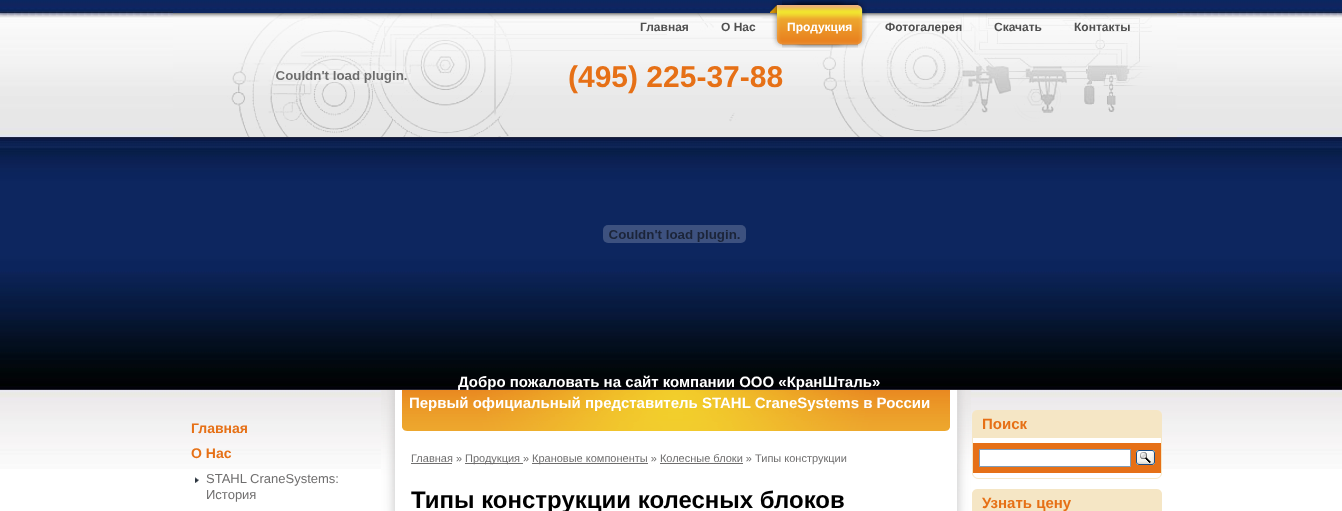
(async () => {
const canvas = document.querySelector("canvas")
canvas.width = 1342
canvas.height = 511
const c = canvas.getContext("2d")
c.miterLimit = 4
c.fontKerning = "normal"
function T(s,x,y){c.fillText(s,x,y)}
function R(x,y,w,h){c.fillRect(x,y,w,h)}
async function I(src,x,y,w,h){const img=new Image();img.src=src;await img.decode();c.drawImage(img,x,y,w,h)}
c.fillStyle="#fff"
R(0,0,1342,511)
await I("1.png",0,0,1342,469)
await I("2.png",173,10,1004,127)
c.font="bold 12px Liberation Sans"
c.fillStyle="#4f4f4f"
T("Главная",640,31)
T("О Нас",721,31)
await I("3.png",770,0,76,48)
await I("4.png",792,0,75,48)
await I("5.png",782,0,76,48)
c.fillStyle="#fff"
T("Продукция",787,31)
c.fillStyle="#4f4f4f"
T("Фотогалерея",885,31)
T("Скачать",994,31)
T("Контакты",1074,31)
await I("6.png",271,66,140,18)
c.font="bold 30px Liberation Sans"
c.fillStyle="#e67016"
T("(495) 225-37-88",568,87)
await I("7.png",603,225,143,18)
await I("9.png",381,390,590,121)
c.font="bold 15px Liberation Sans"
c.fillStyle="#fff"
T("Добро пожаловать на сайт компании ООО «КранШталь»",458,387)
T("Первый официальный представитель STAHL CraneSystems в России",409,408)
c.font="bold 14px Liberation Sans"
c.fillStyle="#e67016"
T("Главная",191,433)
T("О Нас",191,458)
await I("8.png",195,477,4,6)
c.font="13px Liberation Sans"
c.fillStyle="#6f6e6e"
T("STAHL CraneSystems:",206,483)
T("История",206,499)
c.font="11px Liberation Sans"
T("Главная »",411,462)
R(411,463,41,1)
R(465,463,58,1)
T("Продукция »",465,462)
R(532,463,116,1)
T("Крановые компоненты » Колесные блоки » Типы конструкции",532,462)
R(660,463,83,1)
c.font="bold 24px Liberation Sans"
c.fillStyle="#000"
T("Типы конструкции колесных блоков",411,508)
await I("10.png",972,410,190,28)
c.font="bold 15px Liberation Sans"
c.fillStyle="#e67016"
T("Поиск",982,429)
c.fillStyle="#fff"
R(973,438,188,5)
c.fillStyle="#f5e6c5"
R(1161,438,1,35)
R(972,438,1,35)
c.fillStyle="#e67016"
R(973,443,188,30)
c.fillStyle="#fff"
c.beginPath()
c.rect(979.5,449.5,151,17)
c.fill()
c.strokeStyle="#7f9db9"
c.stroke()
await I("11.png",1136,450,19,15)
await I("12.png",972,473,190,6)
await I("13.png",972,489,190,22)
c.fillStyle="#e67016"
T("Узнать цену",982,508)
})()
